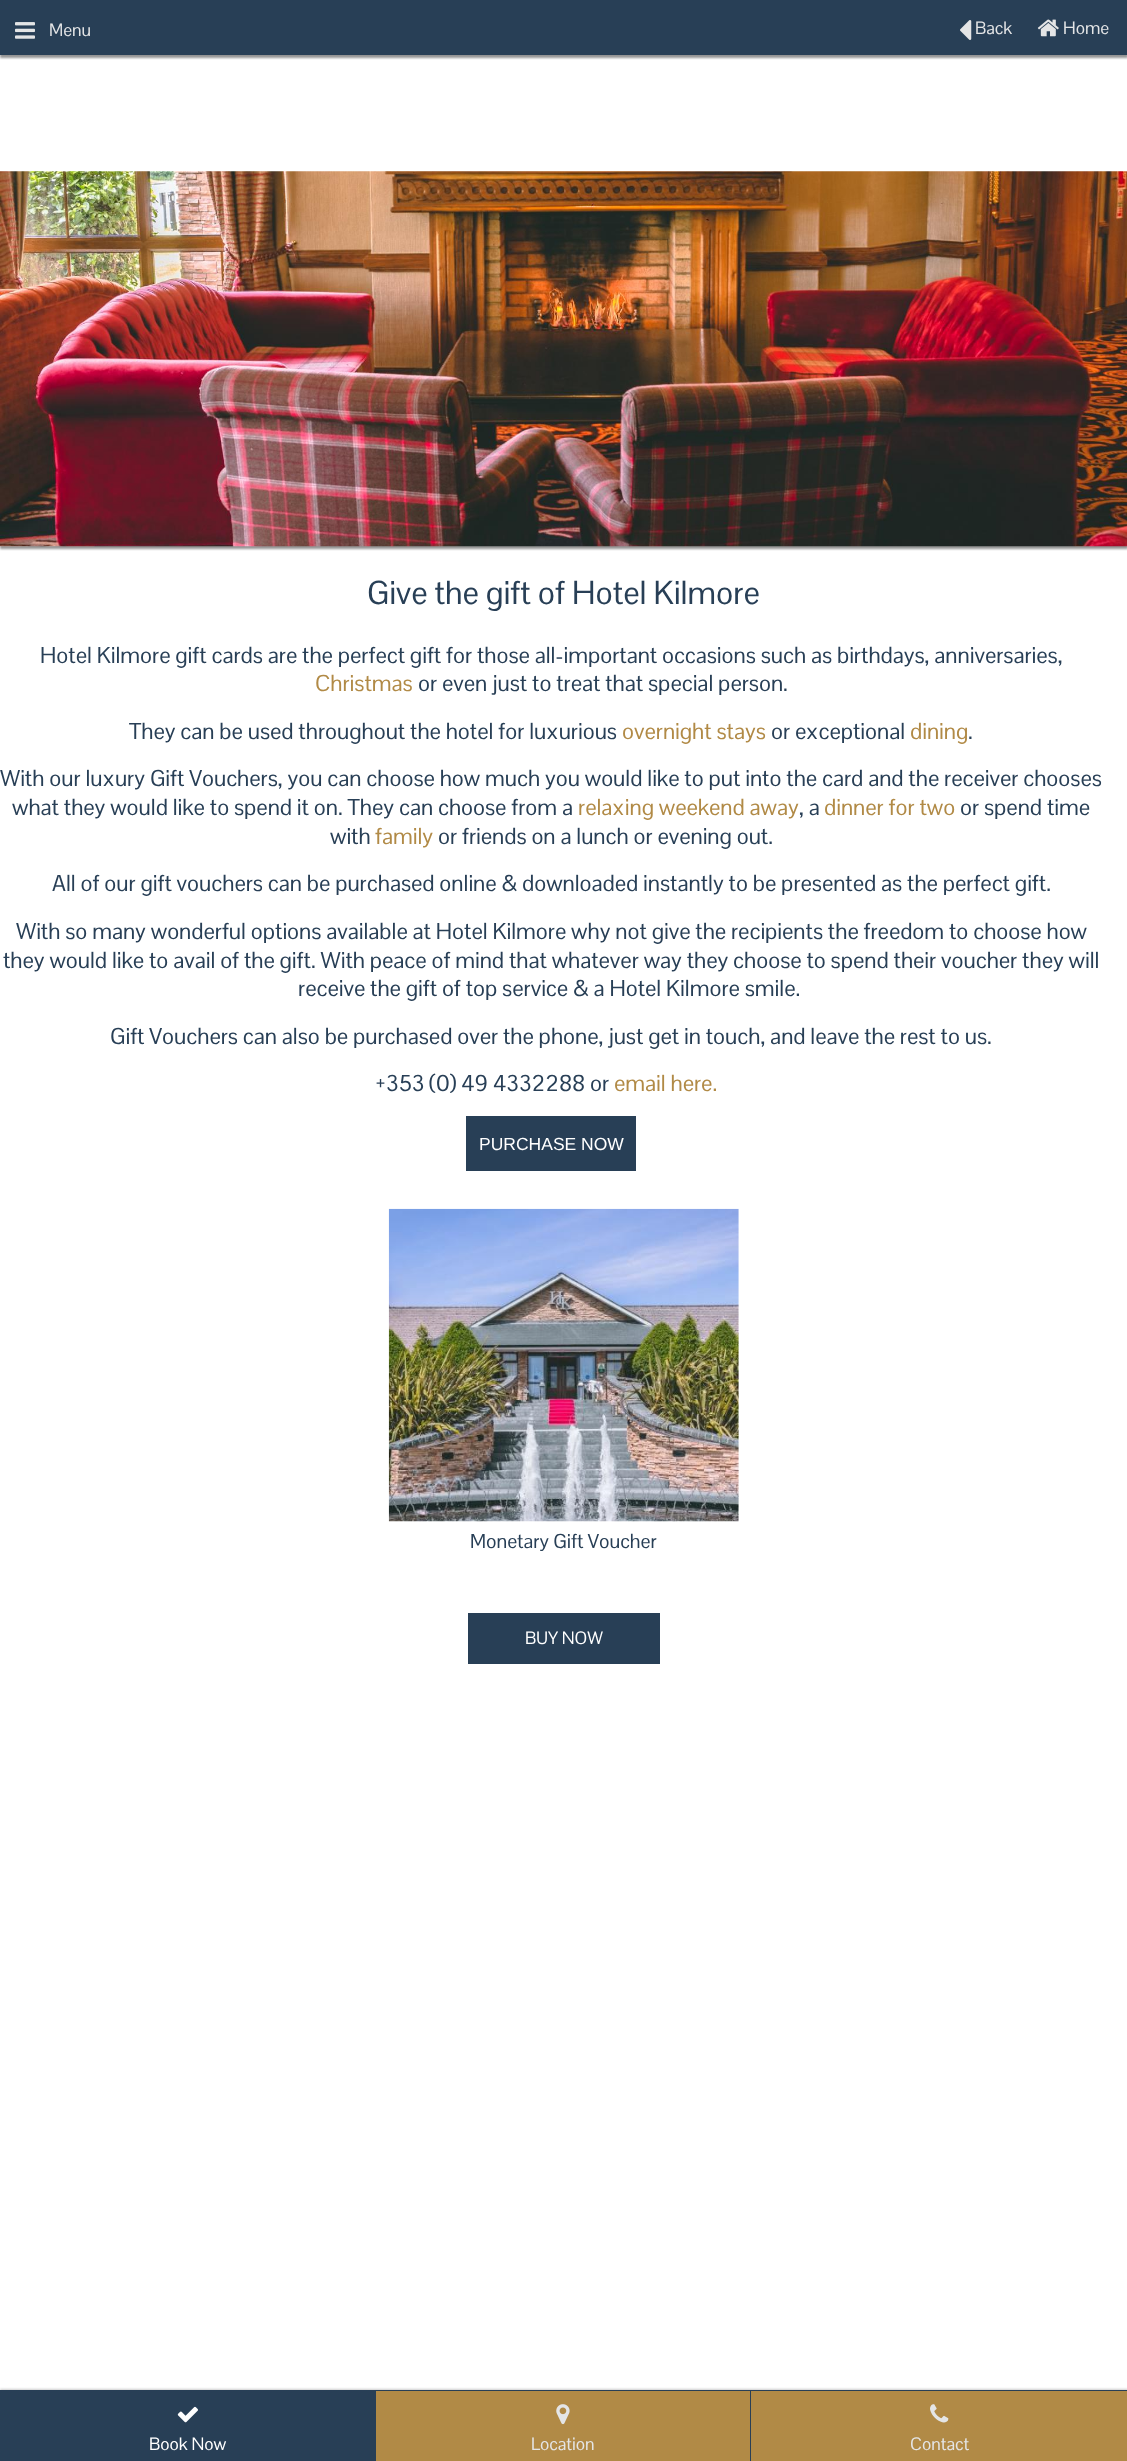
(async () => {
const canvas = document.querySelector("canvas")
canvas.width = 1127
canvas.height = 2461
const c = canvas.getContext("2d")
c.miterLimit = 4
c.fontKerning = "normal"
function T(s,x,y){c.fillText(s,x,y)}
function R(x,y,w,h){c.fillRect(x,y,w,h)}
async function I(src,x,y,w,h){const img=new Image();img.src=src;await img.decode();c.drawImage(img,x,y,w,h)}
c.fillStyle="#fff"
R(0,0,1127,2461)
c.fillStyle="#0000006b"
c.filter="blur(1px)"
c.beginPath()
c.rect(0,3,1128,55)
c.fill()
c.filter="none"
c.fillStyle="#283f56"
R(0,0,1127,55)
await I("1.png",15,22,20,17)
c.font="17.5px Pontano Sans"
c.fillStyle="#e4e5e6"
T("Menu",49,36)
await I("2.png",960,20,12,20)
T("Back",975,34)
await I("3.png",1037,19,22,18)
T("Home",1063,34)
c.fillStyle="#0000006b"
c.filter="blur(1px)"
c.beginPath()
c.rect(0,174,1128,375)
c.fill()
c.filter="none"
await I("4.png",0,171,1127,376)
c.font="32.4px Pontano Sans"
c.fillStyle="#283f56"
T("Give the gift of Hotel Kilmore",367,604)
c.font="22.5px Pontano Sans"
T("Hotel Kilmore gift cards are the perfect gift for those all-important occasions such as birthdays, anniversaries,",40,663)
c.fillStyle="#b18a46"
T("Christmas",315,691)
c.fillStyle="#283f56"
T("or even just to treat that special person.",418,691)
T("They can be used throughout the hotel for luxurious",129,739)
c.fillStyle="#b18a46"
T("overnight stays",622,739)
c.fillStyle="#283f56"
T("or exceptional",771,739)
c.fillStyle="#b18a46"
T("dining",910,739)
c.fillStyle="#283f56"
T(".",968,739)
T("With our luxury Gift Vouchers, you can choose how much you would like to put into the card and the receiver chooses",0,786)
T("what they would like to spend it on. They can choose from a",12,815)
c.fillStyle="#b18a46"
T("relaxing weekend away",578,815)
c.fillStyle="#283f56"
T(", a",799,815)
c.fillStyle="#b18a46"
T("dinner for two",824,815)
c.fillStyle="#283f56"
T("or spend time",960,815)
T("with",330,844)
c.fillStyle="#b18a46"
T("family",375,844)
c.fillStyle="#283f56"
T("or friends on a lunch or evening out.",438,844)
T("All of our gift vouchers can be purchased online & downloaded instantly to be presented as the perfect gift.",52,891)
T("With so many wonderful options available at Hotel Kilmore why not give the recipients the freedom to choose how",16,939)
T("they would like to avail of the gift. With peace of mind that whatever way they choose to spend their voucher they will",3,968)
T("receive the gift of top service & a Hotel Kilmore smile.",298,996)
T("Gift Vouchers can also be purchased over the phone, just get in touch, and leave the rest to us.",110,1044)
T("+353 (0) 49 4332288 or",375,1091)
c.fillStyle="#b18a46"
T("email here.",614,1091)
c.fillStyle="#283f56"
R(466,1116,170,55)
c.font="17.5px Liberation Sans"
c.fillStyle="#fff"
T("PURCHASE NOW",479,1150)
await I("5.png",388,1208,351,314)
c.font="19.75px Pontano Sans"
c.fillStyle="#283f56"
T("Monetary Gift Voucher",470,1548)
R(468,1613,192,51)
c.font="17.5px Pontano Sans"
c.fillStyle="#fff"
T("BUY NOW",525,1644)
c.fillStyle="#00000033"
c.filter="blur(1px)"
c.beginPath()
c.rect(0,2389,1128,71)
c.fill()
c.filter="none"
c.fillStyle="#283f56"
R(0,2390,1127,1)
R(0,2391,376,70)
await I("6.png",177,2406,21,17)
c.fillStyle="#fff"
T("Book Now",149,2450)
c.fillStyle="#b18a46"
R(376,2391,374,70)
c.fillStyle="#283f56"
R(750,2391,1,70)
await I("7.png",556,2404,14,21)
c.fillStyle="#e4e5e6"
T("Location",531,2450)
c.fillStyle="#b18a46"
R(751,2391,376,70)
await I("8.png",930,2404,19,19)
c.fillStyle="#e4e5e6"
T("Contact",910,2450)
})()
